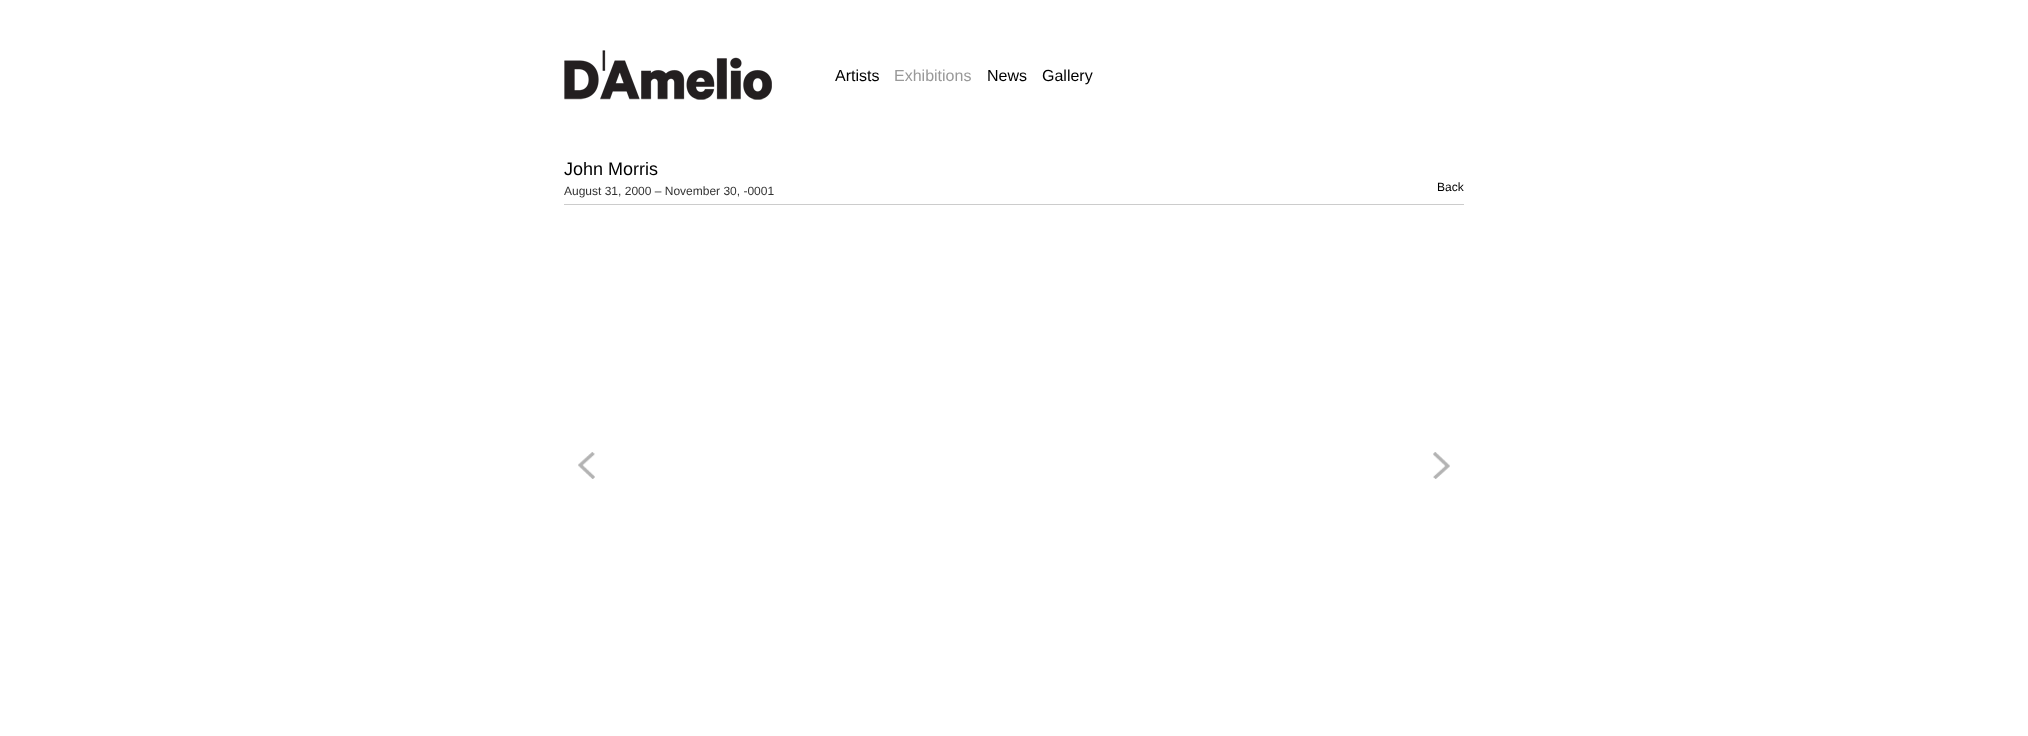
(async () => {
const canvas = document.querySelector("canvas")
canvas.width = 2028
canvas.height = 736
const c = canvas.getContext("2d")
c.miterLimit = 4
c.fontKerning = "normal"
function T(s,x,y){c.fillText(s,x,y)}
function R(x,y,w,h){c.fillRect(x,y,w,h)}
async function I(src,x,y,w,h){const img=new Image();img.src=src;await img.decode();c.drawImage(img,x,y,w,h)}
c.fillStyle="#fff"
R(0,0,2028,736)
await I("1.png",564,50,208,50)
c.font="16px Liberation Sans"
c.fillStyle="#000"
T("Artists",835,81)
c.fillStyle="#999"
T("Exhibitions",894,81)
c.fillStyle="#000"
T("News",987,81)
T("Gallery",1042,81)
c.fillStyle="#ccc"
R(564,204,900,1)
c.font="18px Liberation Sans"
c.fillStyle="#000"
T("John Morris",564,175)
c.font="12px Liberation Sans"
c.fillStyle="#333"
T("August 31, 2000 – November 30, -0001",564,195)
c.fillStyle="#000"
T("Back",1437,191)
await I("2.png",578,452,17,27)
await I("3.png",1433,452,17,27)
})()
